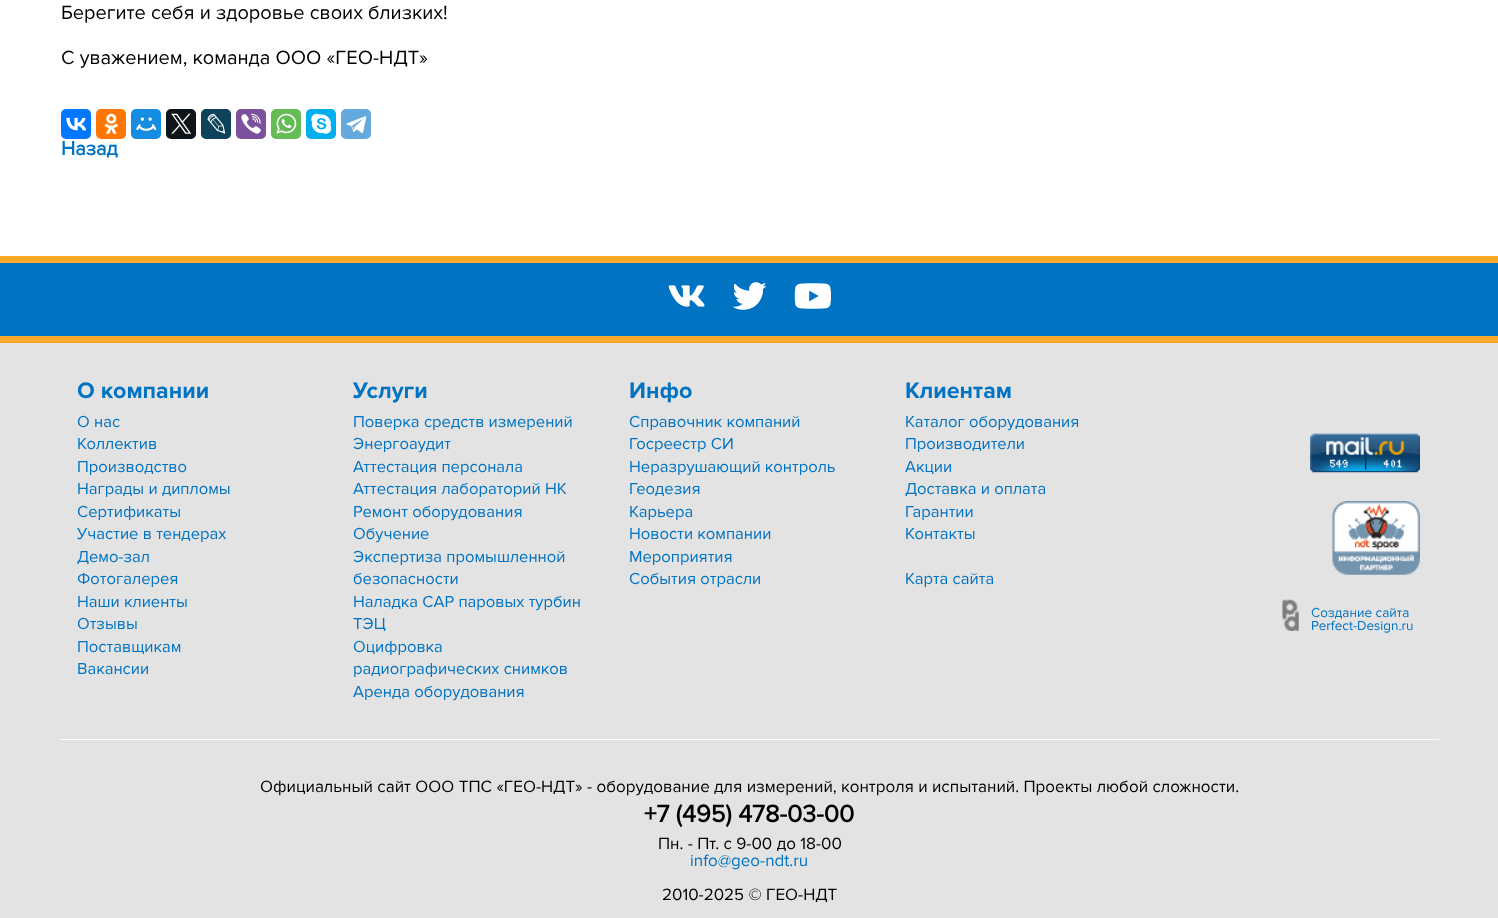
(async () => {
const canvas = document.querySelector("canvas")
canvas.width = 1498
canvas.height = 918
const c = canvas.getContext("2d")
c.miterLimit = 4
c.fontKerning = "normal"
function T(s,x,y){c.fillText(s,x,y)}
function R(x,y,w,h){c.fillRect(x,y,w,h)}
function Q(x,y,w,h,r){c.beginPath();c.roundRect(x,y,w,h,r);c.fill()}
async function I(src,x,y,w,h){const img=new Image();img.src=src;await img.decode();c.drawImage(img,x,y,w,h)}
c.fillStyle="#fff"
R(0,0,1498,918)
c.font="20px Proxima Nova"
c.fillStyle="#000"
T("Берегите себя и здоровье своих близких!",61,19)
T("С уважением, команда ООО «ГЕО-НДТ»",61,64)
c.fillStyle="#07f"
Q(61,109,30,30,5)
await I("1.png",66,117,21,14)
c.fillStyle="#f70"
Q(96,109,30,30,5)
await I("2.png",104,113,14,21)
c.fillStyle="#168de2"
Q(131,109,30,30,5)
await I("3.png",136,117,21,14)
c.fillStyle="#0f1419"
Q(166,109,30,30,5)
await I("4.png",171,113,21,21)
c.fillStyle="#0d425a"
Q(201,109,30,30,5)
await I("5.png",207,113,19,21)
c.fillStyle="#7b519d"
Q(236,109,30,30,5)
await I("6.png",241,113,20,21)
c.fillStyle="#65bc54"
Q(271,109,30,30,5)
await I("7.png",276,113,21,21)
c.fillStyle="#00aff0"
Q(306,109,30,30,5)
await I("8.png",311,113,21,21)
c.fillStyle="#64a9dc"
Q(341,109,30,30,5)
await I("9.png",346,116,21,17)
c.font="bold 20px Proxima Nova"
c.fillStyle="#0073c3"
T("Назад",61,155)
R(0,263,1498,73)
c.fillStyle="#fea92a"
R(0,256,1498,7)
R(0,336,1498,7)
await I("10.png",668,285,37,22)
await I("11.png",732,282,35,28)
await I("12.png",794,283,37,26)
c.fillStyle="#e3e3e3"
R(0,343,1498,575)
c.fillStyle="#fff"
R(60,739,1379,1)
c.font="bold 23.25px 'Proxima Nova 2'"
c.fillStyle="#0073c3"
T("О компании",77,398)
c.font="16.6px Proxima Nova"
T("О нас",77,427)
T("Коллектив",77,449)
T("Производство",77,472)
T("Награды и дипломы",77,494)
T("Сертификаты",77,517)
T("Участие в тендерах",77,539)
T("Демо-зал",77,562)
T("Фотогалерея",77,584)
T("Наши клиенты",77,607)
T("Отзывы",77,629)
T("Поставщикам",77,652)
T("Вакансии",77,674)
c.font="bold 23.25px 'Proxima Nova 2'"
T("Услуги",353,398)
c.font="16.6px Proxima Nova"
T("Поверка средств измерений",353,427)
T("Энергоаудит",353,449)
T("Аттестация персонала",353,472)
T("Аттестация лабораторий НК",353,494)
T("Ремонт оборудования",353,517)
T("Обучение",353,539)
T("Экспертиза промышленной",353,562)
T("безопасности",353,584)
T("Наладка САР паровых турбин",353,607)
T("ТЭЦ",353,629)
T("Оцифровка",353,652)
T("радиографических снимков",353,674)
T("Аренда оборудования",353,697)
c.font="bold 23.25px 'Proxima Nova 2'"
T("Инфо",629,398)
c.font="16.6px Proxima Nova"
T("Справочник компаний",629,427)
T("Госреестр СИ",629,449)
T("Неразрушающий контроль",629,472)
T("Геодезия",629,494)
T("Карьера",629,517)
T("Новости компании",629,539)
T("Мероприятия",629,562)
T("События отрасли",629,584)
c.font="bold 23.25px 'Proxima Nova 2'"
T("Клиентам",905,398)
c.font="16.6px Proxima Nova"
T("Каталог оборудования",905,427)
T("Производители",905,449)
T("Акции",905,472)
T("Доставка и оплата",905,494)
T("Гарантии",905,517)
T("Контакты",905,539)
T("Карта сайта",905,584)
await I("13.png",1310,433,110,40)
await I("14.png",1332,501,88,74)
await I("15.png",1282,599,17,32)
c.font="13.5px Proxima Nova"
T("Создание сайта",1311,617)
T("Perfect-Design.ru",1311,630)
c.font="17px Proxima Nova"
c.fillStyle="#000"
T("Официальный сайт ООО ТПС «ГЕО-НДТ» - оборудование для измерений, контроля и испытаний. Проекты любой сложности.",260,792)
c.font="bold 25px Proxima Nova"
T("+7 (495) 478-03-00",644,822)
c.font="17px Proxima Nova"
T("Пн. - Пт. с 9-00 до 18-00",658,849)
c.fillStyle="#0073c3"
T("info@geo-ndt.ru",690,866)
c.fillStyle="#000"
T("2010-2025 © ГЕО-НДТ",662,900)
})()
